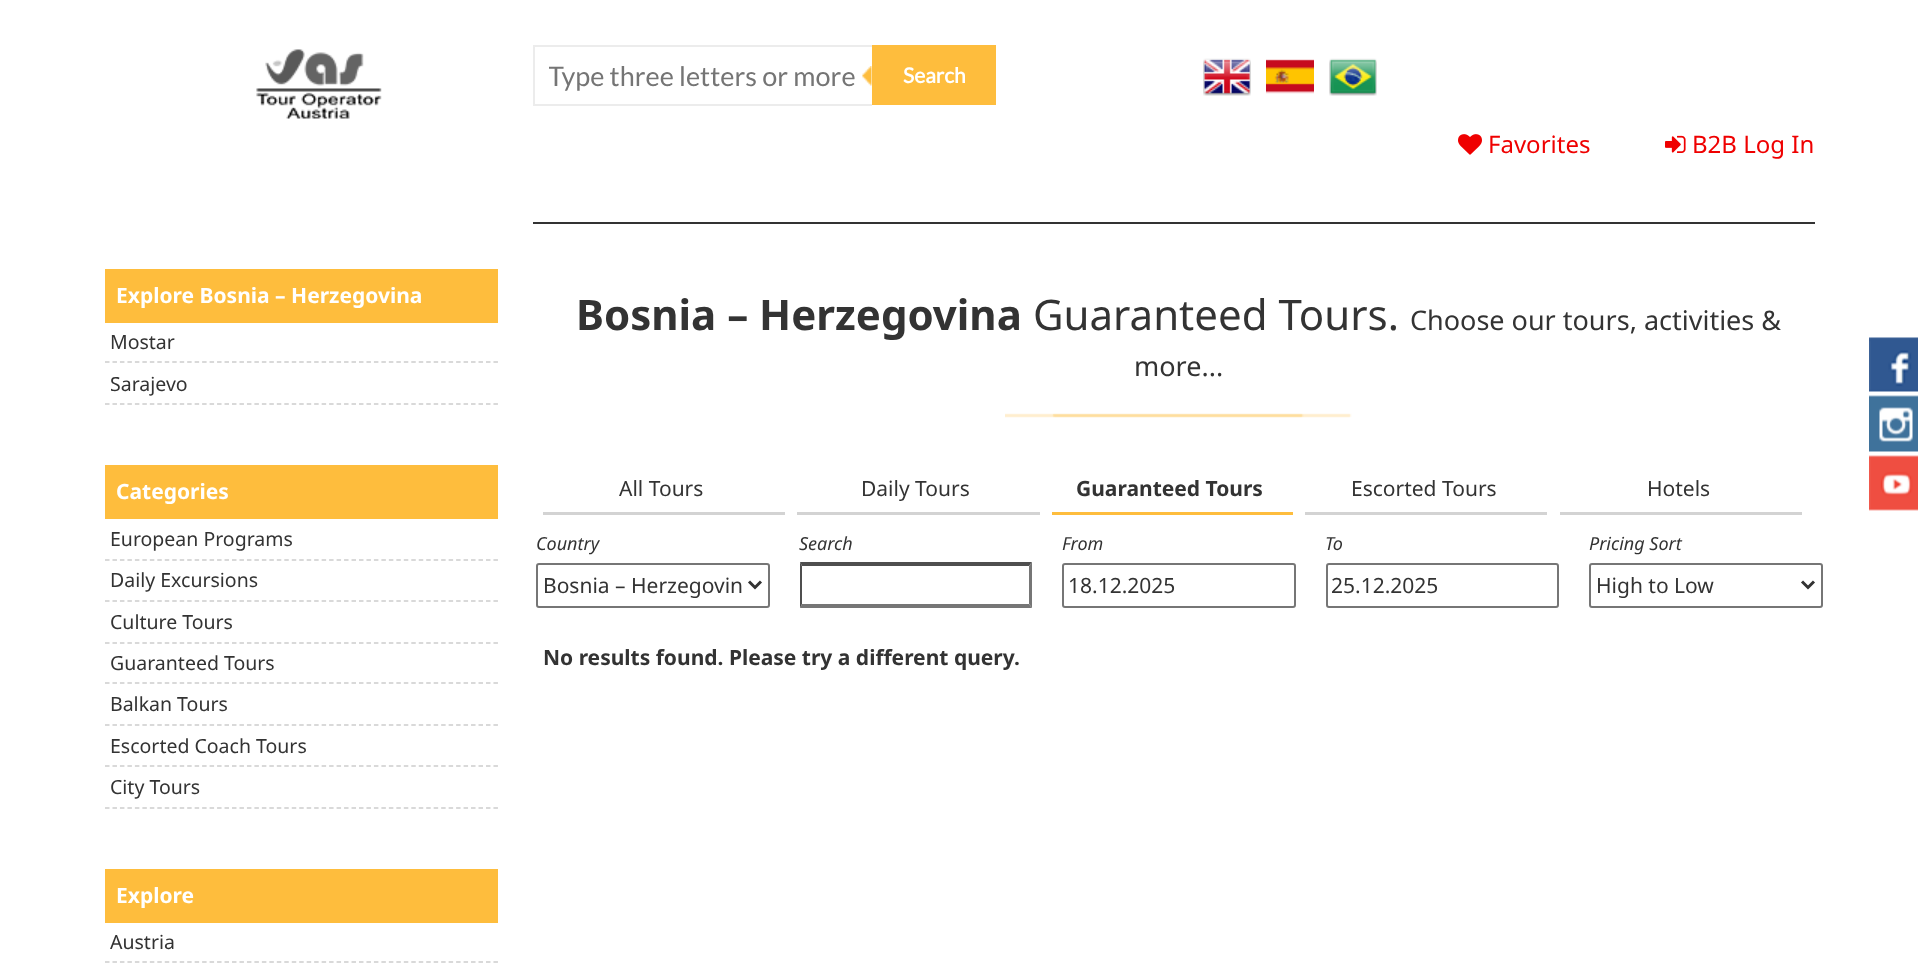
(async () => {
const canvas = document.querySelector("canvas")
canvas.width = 1918
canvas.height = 974
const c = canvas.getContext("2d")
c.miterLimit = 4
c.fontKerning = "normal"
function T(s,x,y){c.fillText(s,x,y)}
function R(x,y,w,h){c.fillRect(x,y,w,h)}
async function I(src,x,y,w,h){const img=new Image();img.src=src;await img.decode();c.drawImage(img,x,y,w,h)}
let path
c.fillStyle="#fff"
R(0,0,1918,974)
await I("1.png",256,49,126,70)
c.fillStyle="#333"
R(533,222,1282,2)
await I("2.png",862,66,10,20)
c.fillStyle="#ececec"
R(533,45,339,2)
R(533,104,339,2)
R(533,45,2,60)
c.save()
c.beginPath()
c.rect(549,59,308,33)
c.clip()
c.font="27px Lato"
c.fillStyle="#757575"
T("Type three letters or more",548,86)
c.restore()
c.fillStyle="#febd3d"
R(872,45,124,60)
c.font="bold 21px Lato"
c.fillStyle="#fff"
T("Search",903,83)
await I("3.png",1203,58,48,38)
await I("4.png",1266,59,48,35)
await I("5.png",1329,58,48,38)
await I("6.png",1458,134,24,21)
c.font="24px Noto Sans"
c.fillStyle="#ef0000"
T("Favorites",1488,153)
await I("7.png",1665,135,21,18)
T("B2B Log In",1692,153)
c.fillStyle="#febd3d"
R(105,269,393,54)
c.font="bold 21px Noto Sans"
c.fillStyle="#fff"
T("Explore Bosnia – Herzegovina",116,303)
path = new Path2D("M105 362h393")
c.strokeStyle="#cdcdcd"
c.lineWidth=1.5
c.setLineDash([4.5,2.97])
c.stroke(path)
c.font="19.5px Noto Sans"
c.fillStyle="#333"
T("Mostar",110,349)
path = new Path2D("M105 404h393")
c.stroke(path)
T("Sarajevo",110,391)
c.fillStyle="#febd3d"
R(105,465,393,54)
c.font="bold 21px Noto Sans"
c.fillStyle="#fff"
T("Categories",116,499)
path = new Path2D("M105 560h393")
c.stroke(path)
c.font="19.5px Noto Sans"
c.fillStyle="#333"
T("European Programs",110,546)
path = new Path2D("M105 601h393")
c.stroke(path)
T("Daily Excursions",110,587)
path = new Path2D("M105 643h393")
c.stroke(path)
T("Culture Tours",110,629)
path = new Path2D("M105 683h393")
c.stroke(path)
T("Guaranteed Tours",110,670)
path = new Path2D("M105 725h393")
c.stroke(path)
T("Balkan Tours",110,711)
path = new Path2D("M105 766h393")
c.stroke(path)
T("Escorted Coach Tours",110,753)
path = new Path2D("M105 808h393")
c.stroke(path)
T("City Tours",110,794)
c.fillStyle="#febd3d"
R(105,869,393,54)
c.font="bold 21px Noto Sans"
c.fillStyle="#fff"
T("Explore",116,903)
path = new Path2D("M105 962h393")
c.stroke(path)
c.font="19.5px Noto Sans"
c.fillStyle="#333"
T("Austria",110,949)
c.font="bold 42px Noto Sans"
T("Bosnia – Herzegovina",576,330)
c.font="42px Noto Sans"
T("Guaranteed Tours.",1033,330)
c.font="27px Noto Sans"
T("Choose our tours, activities &",1410,330)
T("more...",1134,376)
await I("8.png",1005,413,347,5)
c.fillStyle="#d3d3d3"
R(543,512,242,3)
c.font="21px Noto Sans"
c.fillStyle="#333"
T("All Tours",619,496)
c.fillStyle="#d3d3d3"
R(797,512,243,3)
c.fillStyle="#333"
T("Daily Tours",861,496)
c.fillStyle="#febd3d"
R(1052,512,241,3)
c.font="bold 21px Noto Sans"
c.fillStyle="#333"
T("Guaranteed Tours",1076,496)
c.fillStyle="#d3d3d3"
R(1305,512,242,3)
c.font="21px Noto Sans"
c.fillStyle="#333"
T("Escorted Tours",1351,496)
c.fillStyle="#d3d3d3"
R(1560,512,242,3)
c.fillStyle="#333"
T("Hotels",1647,496)
c.font="italic 18px Noto Sans"
T("Country",536,550)
c.beginPath()
c.roundRect(537,564,232,43,2)
c.strokeStyle="#767676"
c.lineWidth=2
c.setLineDash([])
c.stroke()
path = new Path2D("M749 581.5l6 6l6-6")
c.strokeStyle="#333"
c.lineWidth=3
c.stroke(path)
c.font="21px Noto Sans"
T("Bosnia – Herzegovin",543,593)
c.font="italic 18px Noto Sans"
T("Search",799,550)
c.fillStyle="#4f4f4f"
path = new Path2D("M800 562h232l-3 4h-227z")
c.fill(path)
c.fillStyle="#767676"
path = new Path2D("M1032 562v46l-3-4v-38z")
c.fill(path)
path = new Path2D("M1032 608h-232l2-4h227z")
c.fill(path)
c.fillStyle="#4f4f4f"
path = new Path2D("M800 608v-46l2 4v38z")
c.fill(path)
c.fillStyle="#333"
T("From",1062,550)
c.beginPath()
c.roundRect(1063,564,232,43,2)
c.strokeStyle="#767676"
c.lineWidth=2
c.stroke()
c.font="21px Noto Sans"
T("18.12.2025",1068,593)
c.font="italic 18px Noto Sans"
T("To",1325,550)
c.beginPath()
c.roundRect(1327,564,231,43,2)
c.stroke()
c.font="21px Noto Sans"
T("25.12.2025",1331,593)
c.font="italic 18px Noto Sans"
T("Pricing Sort",1589,550)
c.beginPath()
c.roundRect(1590,564,232,43,2)
c.stroke()
path = new Path2D("M1802 581.5l6 6l6-6")
c.strokeStyle="#333"
c.lineWidth=3
c.stroke(path)
c.font="21px Noto Sans"
T("High to Low",1596,593)
c.font="bold 21px Noto Sans"
T("No results found. Please try a different query.",543,665)
await I("9.png",1869,337,49,55)
await I("10.png",1869,395,49,57)
await I("11.png",1869,455,49,56)
})()
